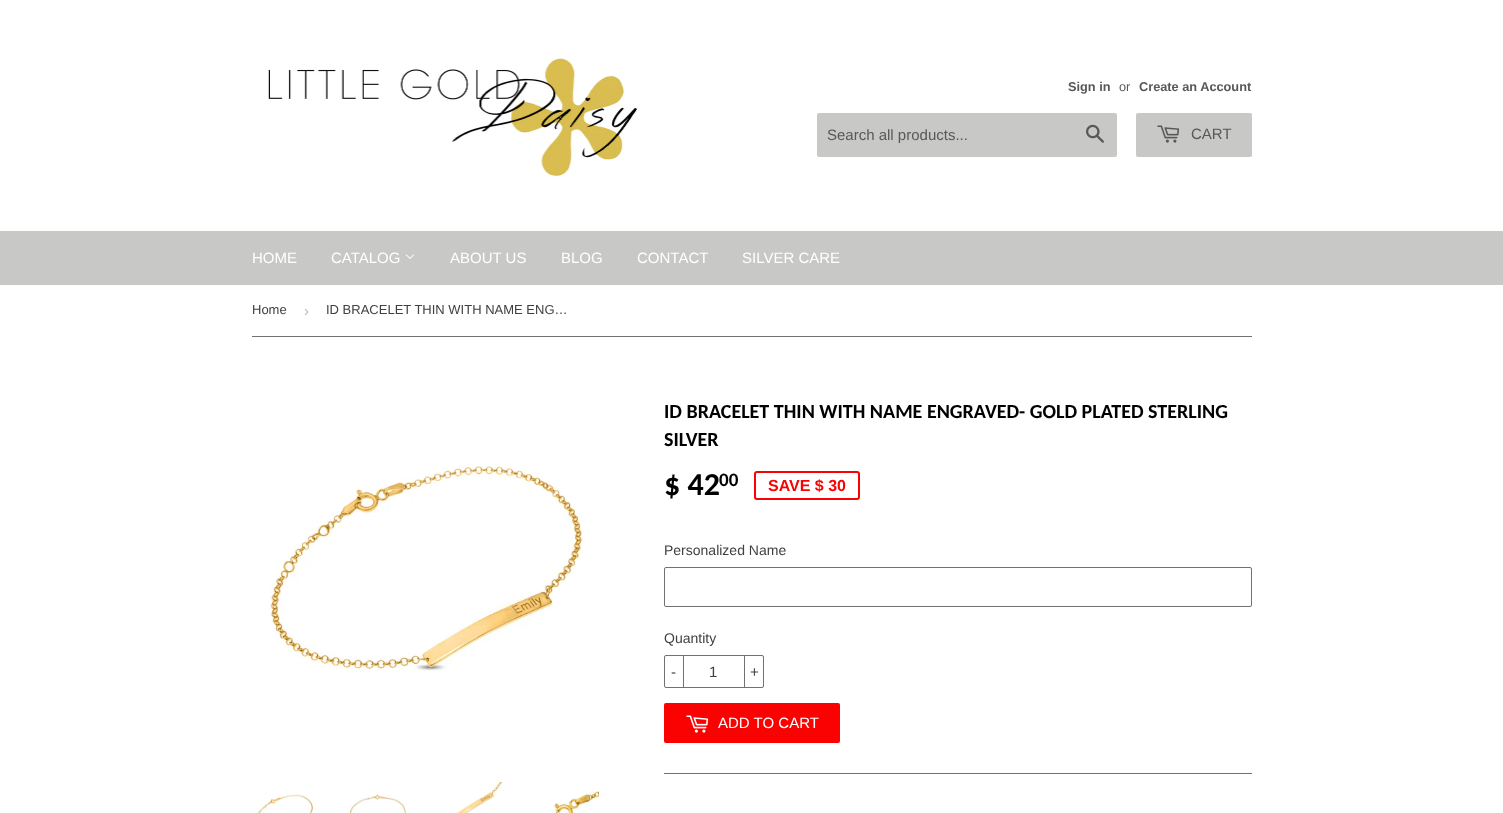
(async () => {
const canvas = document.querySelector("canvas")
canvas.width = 1503
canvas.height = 813
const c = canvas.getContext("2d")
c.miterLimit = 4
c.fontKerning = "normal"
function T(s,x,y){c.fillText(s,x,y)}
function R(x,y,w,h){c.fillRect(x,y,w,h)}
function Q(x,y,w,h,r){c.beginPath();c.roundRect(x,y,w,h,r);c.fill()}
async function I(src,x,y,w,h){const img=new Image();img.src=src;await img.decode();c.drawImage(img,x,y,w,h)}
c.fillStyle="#fff"
R(0,0,1503,813)
await I("1.png",268,58,370,119)
c.font="bold 12.75px Liberation Sans"
c.fillStyle="#585858"
T("Sign in",1068,91)
c.font="12.75px Liberation Sans"
T("or",1119,91)
c.font="bold 12.75px Liberation Sans"
T("Create an Account",1139,91)
c.fillStyle="#c8c8c6"
Q(817,113,300,44,2)
c.font="15px Liberation Sans"
c.fillStyle="#585858"
T("Search all products...",827,140)
await I("2.png",1086,124,18,19)
c.fillStyle="#c8c8c6"
Q(1136,113,116,44,2)
await I("3.png",1157,125,23,18)
c.fillStyle="#585858"
T("CART",1191,139)
c.fillStyle="#c8c8c6"
R(0,231,1503,54)
c.fillStyle="#fff"
T("HOME",252,263)
T("CATALOG",331,263)
await I("4.png",405,254,9,5)
T("ABOUT US",450,263)
T("BLOG",561,263)
T("CONTACT",637,263)
T("SILVER CARE",742,263)
c.fillStyle="#717170"
R(252,336,1000,1)
c.font="13px Liberation Sans"
c.fillStyle="#414040"
T("Home",252,314)
c.font="15px Liberation Sans"
c.fillStyle="#bbb"
T("›",304,316)
c.font="13px Liberation Sans"
c.fillStyle="#414040"
T("ID BRACELET THIN WITH NAME ENG…",326,314)
await I("5.png",269,466,314,205)
await I("6.png",257,794,57,19)
await I("7.png",349,794,57,19)
await I("8.png",457,782,46,31)
await I("9.png",554,791,45,22)
c.font="bold 20px Carlito"
c.fillStyle="#000"
T("ID BRACELET THIN WITH NAME ENGRAVED- GOLD PLATED STERLING",664,418)
T("SILVER",664,446)
c.font="bold 32px Carlito"
T("$ 42",664,495)
c.font="bold 19px Carlito"
T("00",719,486)
c.beginPath()
c.roundRect(755,472,104,27,2)
c.strokeStyle="#fa0202"
c.lineWidth=2
c.stroke()
c.font="bold 16px Liberation Sans"
c.fillStyle="#fa0202"
T("SAVE $ 30",768,491)
c.font="14px Liberation Sans"
c.fillStyle="#414040"
T("Personalized Name",664,555)
c.beginPath()
c.roundRect(664.5,567.5,587,39,1.5)
c.strokeStyle="#717170"
c.lineWidth=1
c.stroke()
T("Quantity",664,643)
c.beginPath()
c.roundRect(664.5,655.5,99,32,1.5)
c.stroke()
c.fillStyle="#717170"
R(683,655,1,33)
c.font="15px Liberation Sans"
c.fillStyle="#414040"
T("-",671,677)
T("1",709,677)
c.fillStyle="#717170"
R(744,655,1,33)
c.fillStyle="#414040"
T("+",750,677)
c.fillStyle="#fa0202"
Q(664,703,176,40,2)
await I("10.png",686,715,23,18)
c.fillStyle="#fff"
T("ADD TO CART",718,728)
c.fillStyle="#717170"
R(664,773,588,1)
})()
